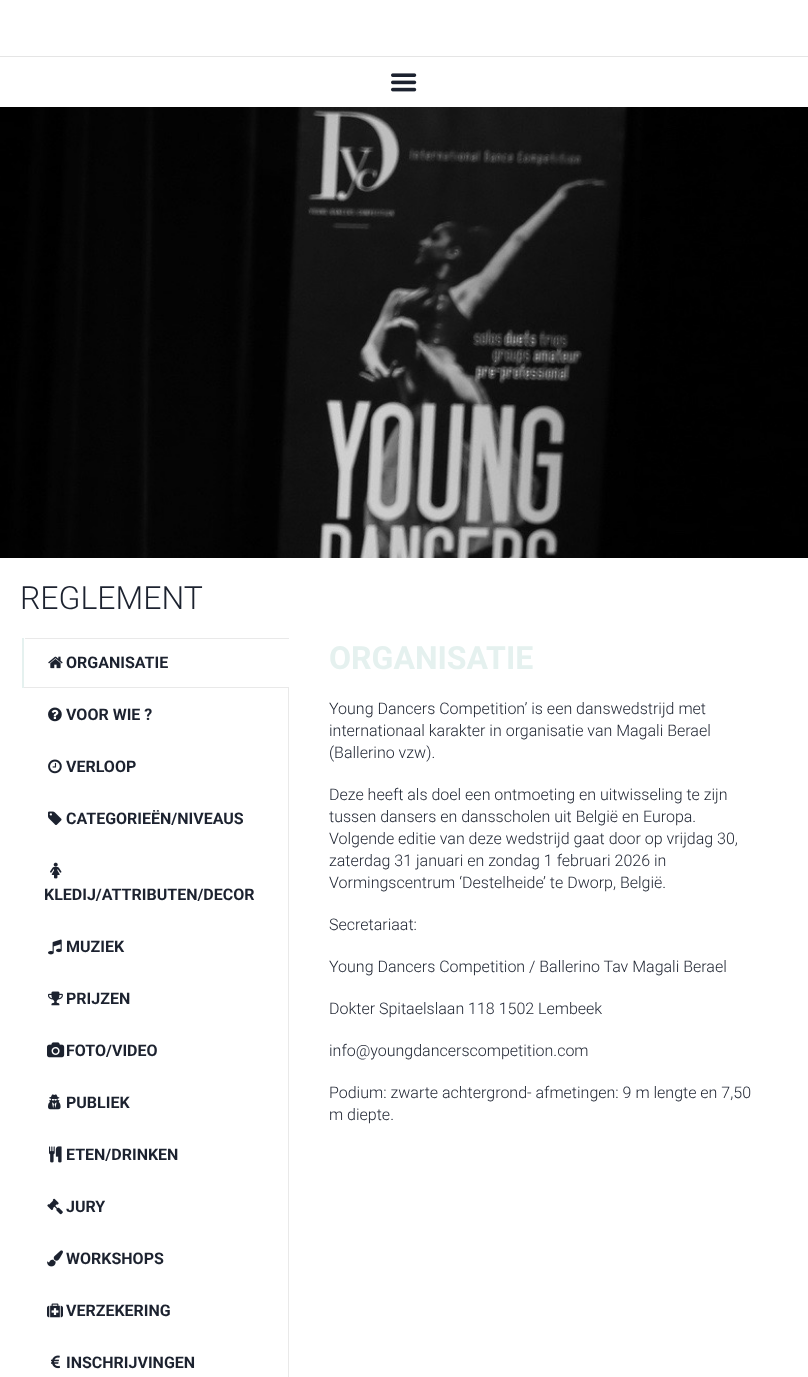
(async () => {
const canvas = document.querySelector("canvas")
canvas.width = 808
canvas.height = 1377
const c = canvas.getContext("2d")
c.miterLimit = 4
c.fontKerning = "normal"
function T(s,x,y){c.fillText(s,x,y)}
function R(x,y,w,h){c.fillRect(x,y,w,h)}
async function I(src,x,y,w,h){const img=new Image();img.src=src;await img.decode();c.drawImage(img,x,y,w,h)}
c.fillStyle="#fff"
R(0,0,808,1377)
c.fillStyle="#e5e5e5"
R(0,56,808,1)
await I("1.png",391,73,26,19)
await I("2.png",0,107,808,451)
c.font="300 32px Roboto"
c.fillStyle="#1c222f"
T("REGLEMENT",20,609)
c.fillStyle="#e5f1ef"
R(22,638,2,50)
c.fillStyle="#e9e9e9"
R(25,638,264,1)
await I("3.png",48,656,15,13)
c.font="bold 16px Roboto"
c.fillStyle="#1c222f"
T("ORGANISATIE",66,668)
c.fillStyle="#e9e9e9"
R(24,687,265,1)
await I("4.png",48,707,14,15)
c.fillStyle="#1c222f"
T("VOOR WIE ?",66,720)
c.fillStyle="#e9e9e9"
R(288,688,1,689)
await I("5.png",48,759,14,15)
c.fillStyle="#1c222f"
T("VERLOOP",66,772)
await I("6.png",48,811,14,14)
T("CATEGORIEËN/NIVEAUS",66,824)
await I("7.png",50,862,12,17)
T("KLEDIJ/ATTRIBUTEN/DECOR",44,900)
await I("8.png",48,939,14,16)
T("MUZIEK",66,952)
await I("9.png",48,991,15,15)
T("PRIJZEN",66,1004)
await I("10.png",47,1042,18,16)
T("FOTO/VIDEO",66,1056)
await I("11.png",48,1094,13,16)
T("PUBLIEK",66,1108)
await I("12.png",49,1146,13,17)
T("ETEN/DRINKEN",66,1160)
await I("13.png",47,1198,16,17)
T("JURY",66,1212)
await I("14.png",47,1250,16,17)
T("WORKSHOPS",66,1264)
await I("15.png",47,1303,16,15)
T("VERZEKERING",66,1316)
await I("16.png",51,1355,9,14)
T("INSCHRIJVINGEN",66,1368)
c.font="bold 32px Roboto"
c.fillStyle="#e5f1ef"
T("ORGANISATIE",329,669)
c.font="300 16px Roboto"
c.fillStyle="#1c222f"
T("Young Dancers Competition’ is een danswedstrijd met",329,714)
T("internationaal karakter in organisatie van Magali Berael",329,736)
T("(Ballerino vzw).",329,758)
T("Deze heeft als doel een ontmoeting en uitwisseling te zijn",329,800)
T("tussen dansers en dansscholen uit België en Europa.",329,822)
T("Volgende editie van deze wedstrijd gaat door op vrijdag 30,",329,844)
T("zaterdag 31 januari en zondag 1 februari 2026 in",329,866)
T("Vormingscentrum ‘Destelheide’ te Dworp, België.",329,888)
T("Secretariaat:",329,930)
T("Young Dancers Competition / Ballerino Tav Magali Berael",329,972)
T("Dokter Spitaelslaan 118 1502 Lembeek",329,1014)
T("info@youngdancerscompetition.com",329,1056)
T("Podium: zwarte achtergrond- afmetingen: 9 m lengte en 7,50",329,1098)
T("m diepte.",329,1120)
})()
